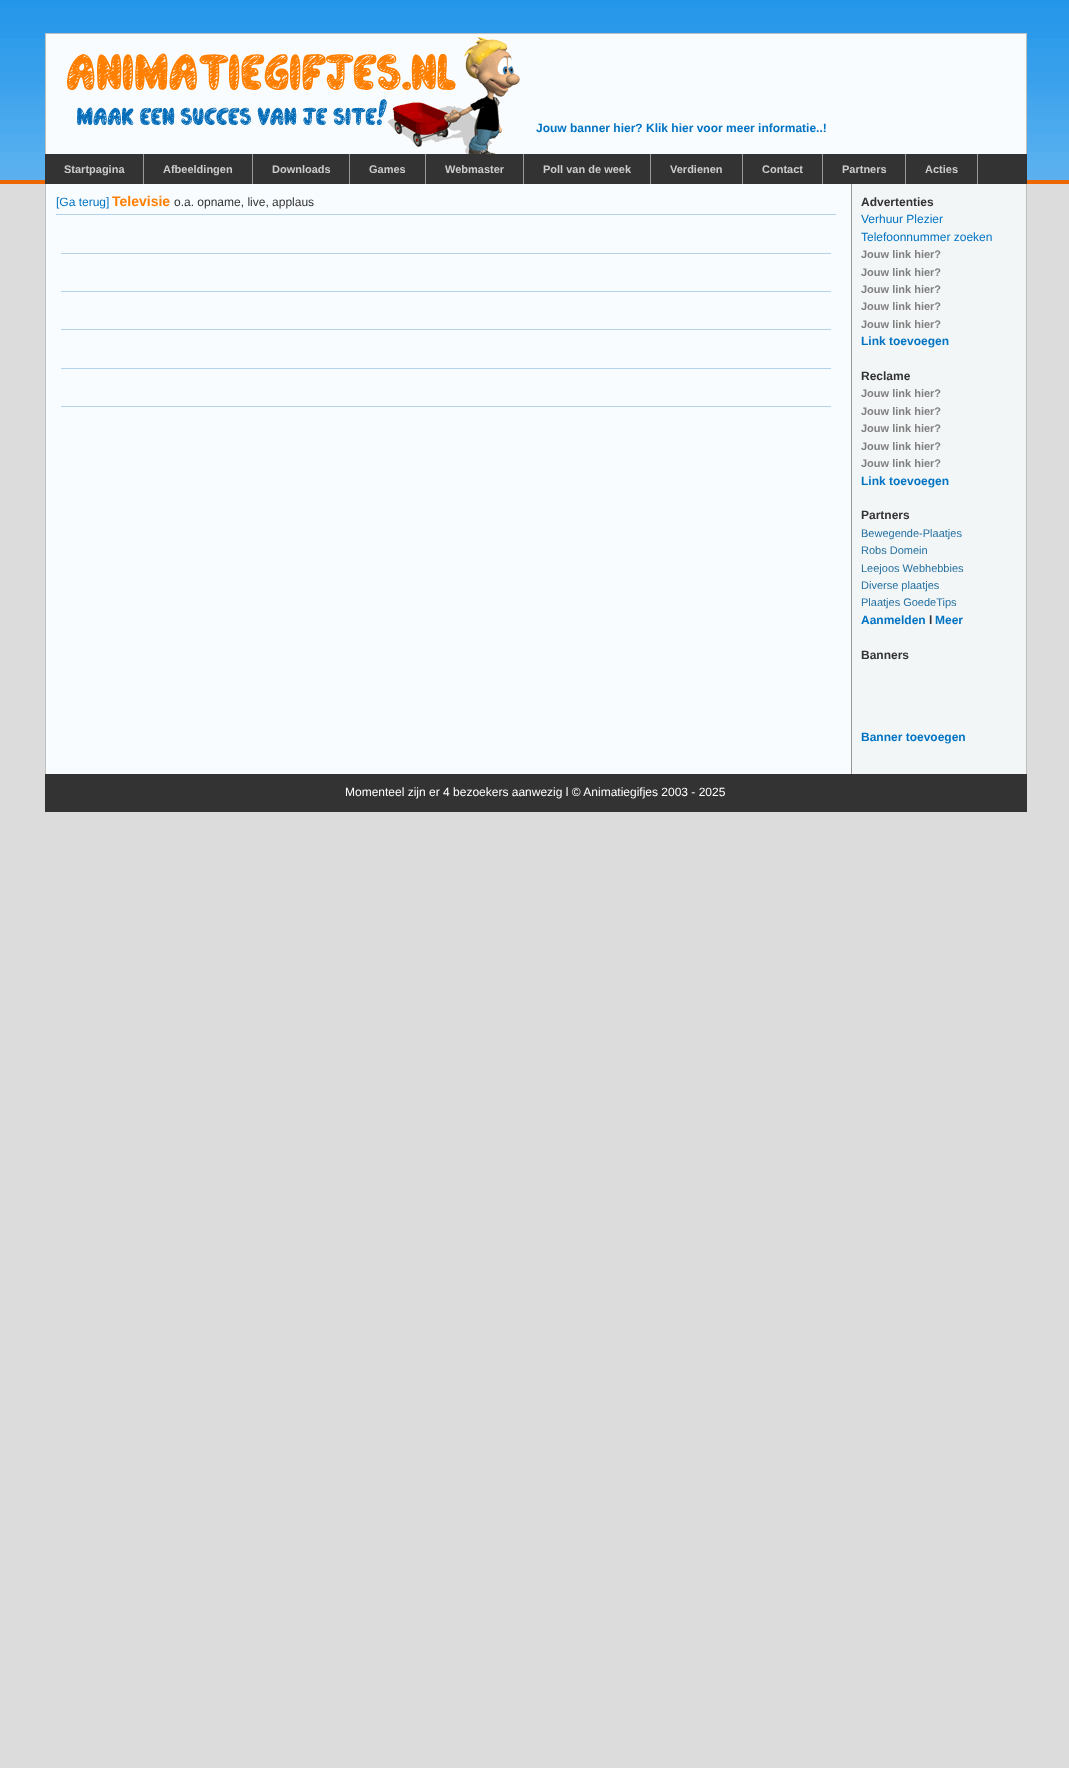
(async () => {
const canvas = document.querySelector("canvas")
canvas.width = 1069
canvas.height = 1768
const c = canvas.getContext("2d")
c.miterLimit = 4
c.fontKerning = "normal"
function T(s,x,y){c.fillText(s,x,y)}
function R(x,y,w,h){c.fillRect(x,y,w,h)}
async function I(src,x,y,w,h){const img=new Image();img.src=src;await img.decode();c.drawImage(img,x,y,w,h)}
c.fillStyle="#dcdcdc"
R(0,0,1069,1768)
await I("1.png",0,0,1069,184)
c.fillStyle="#f8fcff"
R(46,34,980,120)
c.fillStyle="#c0c0c0"
R(45,33,982,1)
R(1026,33,1,121)
R(45,33,1,121)
await I("2.png",67,37,453,117)
c.font="bold 12px Liberation Sans"
c.fillStyle="#0073c3"
T("Jouw banner hier? Klik hier voor meer informatie..!",536,132)
c.fillStyle="#333"
R(45,154,982,30)
c.fillStyle="#999"
R(143,154,1,30)
c.font="bold 11px Liberation Sans"
c.fillStyle="#ccc"
T("Startpagina",64,173)
c.fillStyle="#999"
R(252,154,1,30)
c.fillStyle="#ccc"
T("Afbeeldingen",163,173)
c.fillStyle="#999"
R(349,154,1,30)
c.fillStyle="#ccc"
T("Downloads",272,173)
c.fillStyle="#999"
R(425,154,1,30)
c.fillStyle="#ccc"
T("Games",369,173)
c.fillStyle="#999"
R(523,154,1,30)
c.fillStyle="#ccc"
T("Webmaster",445,173)
c.fillStyle="#999"
R(650,154,1,30)
c.fillStyle="#ccc"
T("Poll van de week",543,173)
c.fillStyle="#999"
R(742,154,1,30)
c.fillStyle="#ccc"
T("Verdienen",670,173)
c.fillStyle="#999"
R(822,154,1,30)
c.fillStyle="#ccc"
T("Contact",762,173)
c.fillStyle="#999"
R(905,154,1,30)
c.fillStyle="#ccc"
T("Partners",842,173)
c.fillStyle="#999"
R(977,154,1,30)
c.fillStyle="#ccc"
T("Acties",925,173)
await I("3.png",46,184,980,590)
c.fillStyle="#c0c0c0"
R(1026,184,1,590)
R(45,184,1,590)
c.font="12px Liberation Sans"
c.fillStyle="#0073c3"
T("[Ga terug]",56,206)
c.font="bold 14px Liberation Sans"
c.fillStyle="#ff7f00"
T("Televisie",112,206)
c.font="12px Liberation Sans"
c.fillStyle="#333"
T("o.a. opname, live, applaus",174,206)
c.fillStyle="#b4d2e9"
R(56,214,780,1)
R(61,253,770,1)
R(61,291,770,1)
R(61,329,770,1)
R(61,368,770,1)
R(61,406,770,1)
c.font="bold 12px Liberation Sans"
c.fillStyle="#333"
T("Advertenties",861,206)
c.font="12px Liberation Sans"
c.fillStyle="#0073c3"
T("Verhuur Plezier",861,223)
T("Telefoonnummer zoeken",861,241)
c.font="bold 11px Liberation Sans"
c.fillStyle="#808080"
T("Jouw link hier?",861,258)
T("Jouw link hier?",861,276)
T("Jouw link hier?",861,293)
T("Jouw link hier?",861,310)
T("Jouw link hier?",861,328)
c.font="bold 12px Liberation Sans"
c.fillStyle="#0073c3"
T("Link toevoegen",861,345)
c.fillStyle="#333"
T("Reclame",861,380)
c.font="bold 11px Liberation Sans"
c.fillStyle="#808080"
T("Jouw link hier?",861,397)
T("Jouw link hier?",861,415)
T("Jouw link hier?",861,432)
T("Jouw link hier?",861,450)
T("Jouw link hier?",861,467)
c.font="bold 12px Liberation Sans"
c.fillStyle="#0073c3"
T("Link toevoegen",861,485)
c.fillStyle="#333"
T("Partners",861,519)
c.font="11px Liberation Sans"
c.fillStyle="#2570a0"
T("Bewegende-Plaatjes",861,537)
T("Robs Domein",861,554)
T("Leejoos Webhebbies",861,572)
T("Diverse plaatjes",861,589)
T("Plaatjes GoedeTips",861,606)
c.font="bold 12px Liberation Sans"
c.fillStyle="#0073c3"
T("Aanmelden",861,624)
c.fillStyle="#333"
T("l",929,624)
c.fillStyle="#0073c3"
T("Meer",935,624)
c.fillStyle="#333"
T("Banners",861,659)
c.fillStyle="#0073c3"
T("Banner toevoegen",861,741)
c.fillStyle="#333"
R(45,774,982,38)
c.font="12px Liberation Sans"
c.fillStyle="#fff"
T("Momenteel zijn er 4 bezoekers aanwezig l © Animatiegifjes 2003 - 2025",345,796)
})()
